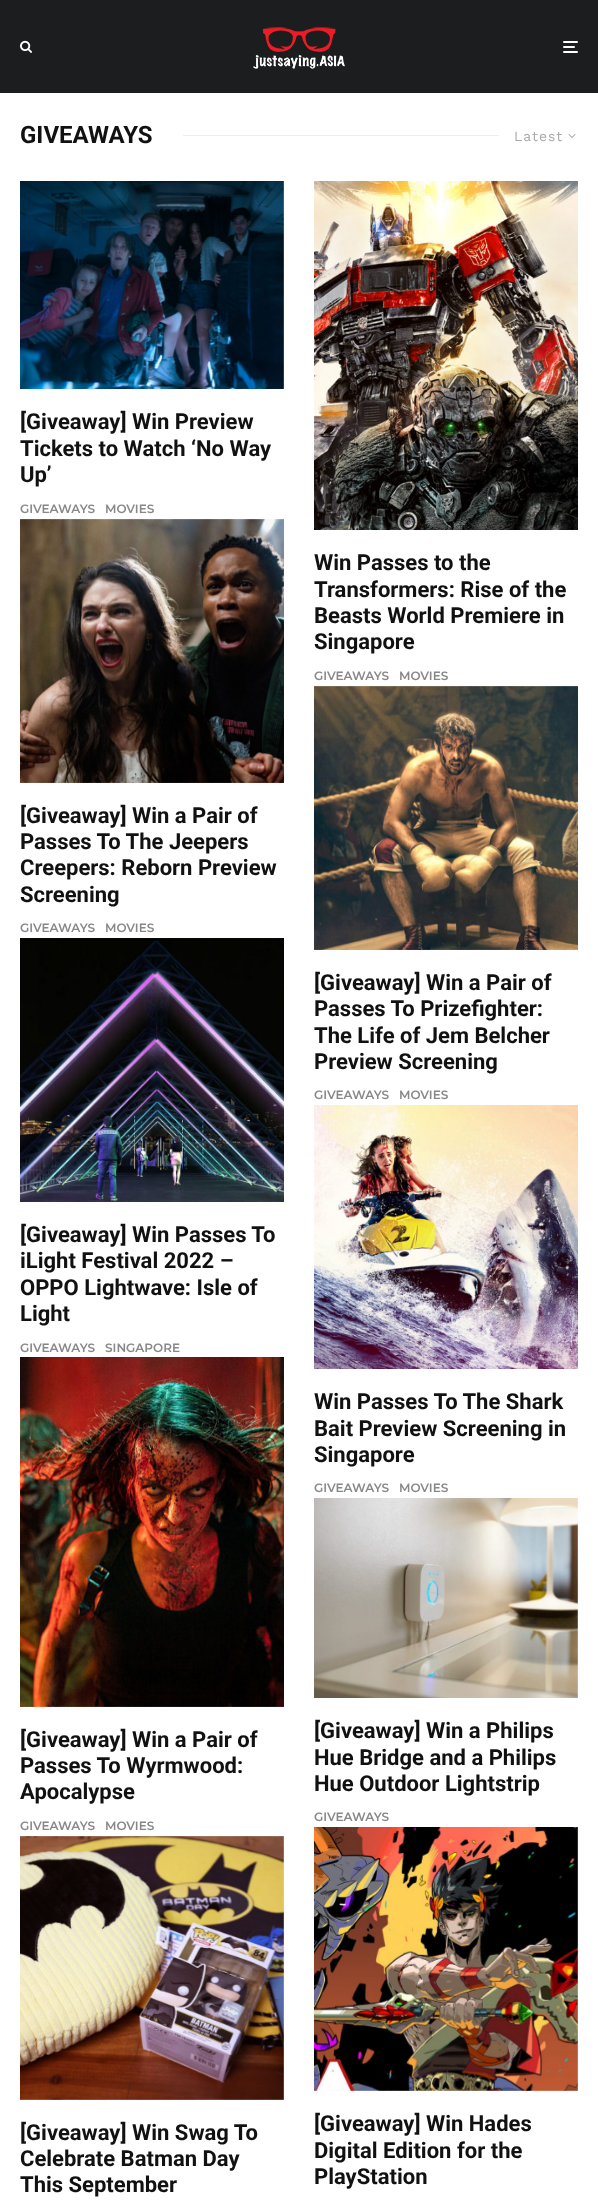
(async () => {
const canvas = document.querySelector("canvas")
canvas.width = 598
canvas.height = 2209
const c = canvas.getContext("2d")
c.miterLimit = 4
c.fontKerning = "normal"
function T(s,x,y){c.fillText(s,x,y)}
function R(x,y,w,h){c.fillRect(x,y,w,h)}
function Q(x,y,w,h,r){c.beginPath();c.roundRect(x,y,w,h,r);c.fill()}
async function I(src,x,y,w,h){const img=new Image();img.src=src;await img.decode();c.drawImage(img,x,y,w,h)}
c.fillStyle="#fff"
R(0,0,598,2209)
c.fillStyle="#1c1d1e"
R(0,0,598,93)
await I("1.png",20,40,12,13)
await I("2.png",253,27,92,42)
c.fillStyle="#fff"
Q(563,46,12,2,1)
Q(563,41,15,2,1)
Q(563,51,15,2,1)
c.font="bold 24px Roboto"
c.fillStyle="#111"
T("GIVEAWAYS",20,143)
c.fillStyle="#eee"
R(183,135,316,1)
c.letterSpacing="1px"
c.font="14px Work Sans"
c.fillStyle="#aaa"
T("Latest",514,141)
await I("3.png",568,134,8,4)
await I("4.png",20,181,264,208)
c.letterSpacing="0px"
c.font="bold 22px Roboto"
c.fillStyle="#111"
T("[Giveaway] Win Preview",20,429)
T("Tickets to Watch ‘No Way",20,456)
T("Up’",20,482)
c.font="600 12px Montserrat"
c.fillStyle="#888"
T("GIVEAWAYS",20,513)
T("MOVIES",105,513)
await I("5.png",20,519,264,264)
c.font="bold 22px Roboto"
c.fillStyle="#111"
T("[Giveaway] Win a Pair of",20,823)
T("Passes To The Jeepers",20,849)
T("Creepers: Reborn Preview",20,875)
T("Screening",20,902)
c.font="600 12px Montserrat"
c.fillStyle="#888"
T("GIVEAWAYS",20,932)
T("MOVIES",105,932)
await I("6.png",20,938,264,264)
c.font="bold 22px Roboto"
c.fillStyle="#111"
T("[Giveaway] Win Passes To",20,1242)
T("iLight Festival 2022 –",20,1268)
T("OPPO Lightwave: Isle of",20,1295)
T("Light",20,1321)
c.font="600 12px Montserrat"
c.fillStyle="#888"
T("GIVEAWAYS",20,1352)
T("SINGAPORE",105,1352)
await I("7.png",20,1357,264,350)
c.font="bold 22px Roboto"
c.fillStyle="#111"
T("[Giveaway] Win a Pair of",20,1747)
T("Passes To Wyrmwood:",20,1773)
T("Apocalypse",20,1799)
c.font="600 12px Montserrat"
c.fillStyle="#888"
T("GIVEAWAYS",20,1830)
T("MOVIES",105,1830)
c.fillStyle="#eee"
R(20,1836,264,264)
await I("8.png",20,1836,264,264)
c.font="bold 22px Roboto"
c.fillStyle="#111"
T("[Giveaway] Win Swag To",20,2140)
T("Celebrate Batman Day",20,2166)
T("This September",20,2192)
await I("9.png",314,181,264,349)
T("Win Passes to the",314,570)
T("Transformers: Rise of the",314,597)
T("Beasts World Premiere in",314,623)
T("Singapore",314,649)
c.font="600 12px Montserrat"
c.fillStyle="#888"
T("GIVEAWAYS",314,680)
T("MOVIES",399,680)
await I("10.png",314,686,264,264)
c.font="bold 22px Roboto"
c.fillStyle="#111"
T("[Giveaway] Win a Pair of",314,990)
T("Passes To Prizefighter:",314,1016)
T("The Life of Jem Belcher",314,1043)
T("Preview Screening",314,1069)
c.font="600 12px Montserrat"
c.fillStyle="#888"
T("GIVEAWAYS",314,1099)
T("MOVIES",399,1099)
await I("11.png",314,1105,264,264)
c.font="bold 22px Roboto"
c.fillStyle="#111"
T("Win Passes To The Shark",314,1409)
T("Bait Preview Screening in",314,1436)
T("Singapore",314,1462)
c.font="600 12px Montserrat"
c.fillStyle="#888"
T("GIVEAWAYS",314,1492)
T("MOVIES",399,1492)
await I("12.png",314,1498,264,200)
c.font="bold 22px Roboto"
c.fillStyle="#111"
T("[Giveaway] Win a Philips",314,1738)
T("Hue Bridge and a Philips",314,1765)
T("Hue Outdoor Lightstrip",314,1791)
c.font="600 12px Montserrat"
c.fillStyle="#888"
T("GIVEAWAYS",314,1821)
c.fillStyle="#eee"
R(314,1827,264,264)
await I("13.png",314,1827,264,264)
c.font="bold 22px Roboto"
c.fillStyle="#111"
T("[Giveaway] Win Hades",314,2131)
T("Digital Edition for the",314,2158)
T("PlayStation",314,2184)
})()
